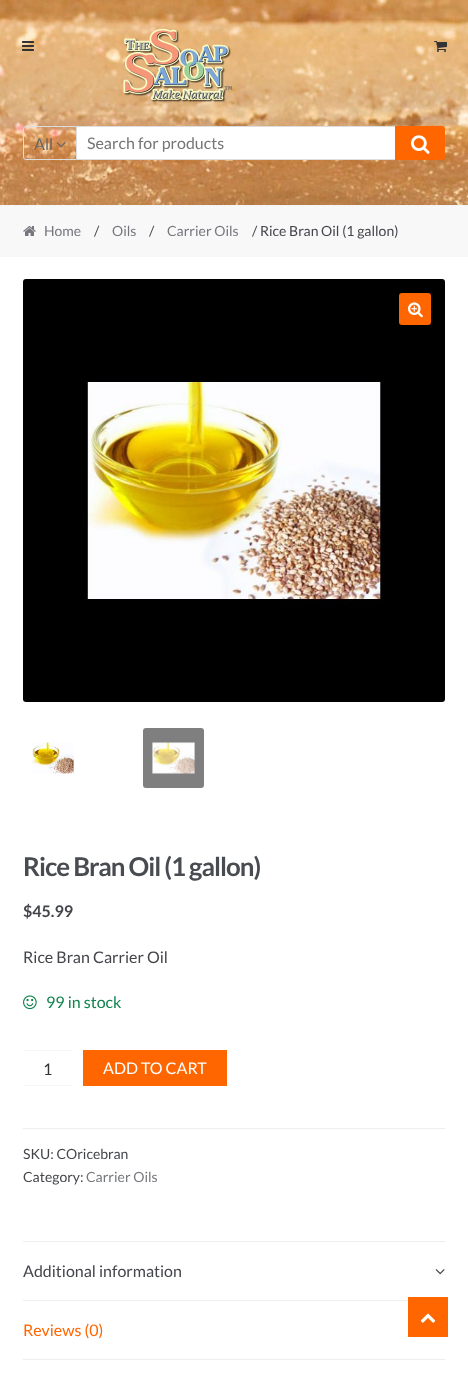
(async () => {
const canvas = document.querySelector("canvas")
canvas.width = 468
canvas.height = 1377
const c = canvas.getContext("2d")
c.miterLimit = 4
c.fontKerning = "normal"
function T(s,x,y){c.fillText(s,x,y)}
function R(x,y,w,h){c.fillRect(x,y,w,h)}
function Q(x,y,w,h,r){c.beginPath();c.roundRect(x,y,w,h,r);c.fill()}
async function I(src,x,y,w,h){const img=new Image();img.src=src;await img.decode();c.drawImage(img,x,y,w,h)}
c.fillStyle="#fff"
R(0,0,468,1377)
await I("1.png",0,0,468,205)
c.fillStyle="#f5f5f5"
R(0,205,468,1)
await I("2.png",22,41,12,10)
await I("3.png",123,28,110,75)
await I("4.png",434,41,13,11)
c.beginPath()
c.roundRect(23.5,126.5,53,33,[2.5,0,0,2.5])
c.strokeStyle="#ddd"
c.stroke()
c.font="16px Lato"
c.fillStyle="#666"
T("All",34,150)
await I("5.png",56,142,10,6)
c.fillStyle="#fff"
R(77,127,318,32)
c.fillStyle="#ddd"
R(77,126,318,1)
R(77,159,318,1)
c.fillStyle="#757575"
T("Search for products",87,149)
c.fillStyle="#f60"
c.beginPath()
c.roundRect(395,126,50,34,[0,3,3,0])
c.fill()
await I("6.png",411,135,19,19)
c.fillStyle="#f8f8f8"
R(0,206,468,51)
await I("7.png",23,226,13,10)
c.font="14px Lato"
c.fillStyle="#75777d"
T("Home",44,236)
c.fillStyle="#43454b"
T("/",94,236)
c.fillStyle="#75777d"
T("Oils",112,236)
c.fillStyle="#43454b"
T("/",149,236)
c.fillStyle="#75777d"
T("Carrier Oils",167,236)
c.fillStyle="#43454b"
T("/ Rice Bran Oil (1 gallon)",252,236)
await I("8.png",23,279,422,423)
c.fillStyle="#f60"
Q(399,293,32,32,3)
await I("9.png",408,302,15,16)
await I("10.png",32,742,42,32)
await I("11.png",143,728,61,60)
c.letterSpacing="-1px"
c.font="bold 25.9px Lato"
c.fillStyle="#484c51"
T("Rice Bran Oil (1 gallon)",23,876)
c.letterSpacing="0px"
c.font="bold 16px Lato"
c.fillStyle="#43454b"
T("$45.99",23,917)
c.font="16px Lato"
T("Rice Bran Carrier Oil",23,963)
await I("12.png",23,995,14,15)
c.fillStyle="#0f834d"
T("99 in stock",46,1008)
c.fillStyle="#f5f5f5"
R(23,1050,50,1)
R(23,1085,50,1)
c.fillStyle="#333"
T("1",43,1075)
c.fillStyle="#f60"
R(83,1050,144,36)
c.fillStyle="#fff"
T("ADD TO CART",103,1074)
c.fillStyle="#eee"
R(23,1128,422,1)
c.font="14px Lato"
c.fillStyle="#43454b"
T("SKU: COricebran",23,1159)
T("Category:",23,1182)
c.fillStyle="#75777d"
T("Carrier Oils",86,1182)
c.fillStyle="#eee"
R(23,1241,422,1)
R(23,1300,385,1)
c.font="16px Lato"
c.fillStyle="#43454b"
T("Additional information",23,1277)
await I("13.png",435,1269,10,6)
c.fillStyle="#eee"
R(23,1359,422,1)
c.fillStyle="#f60"
T("Reviews (0)",23,1336)
R(408,1297,40,40)
await I("14.png",420,1313,16,10)
})()
